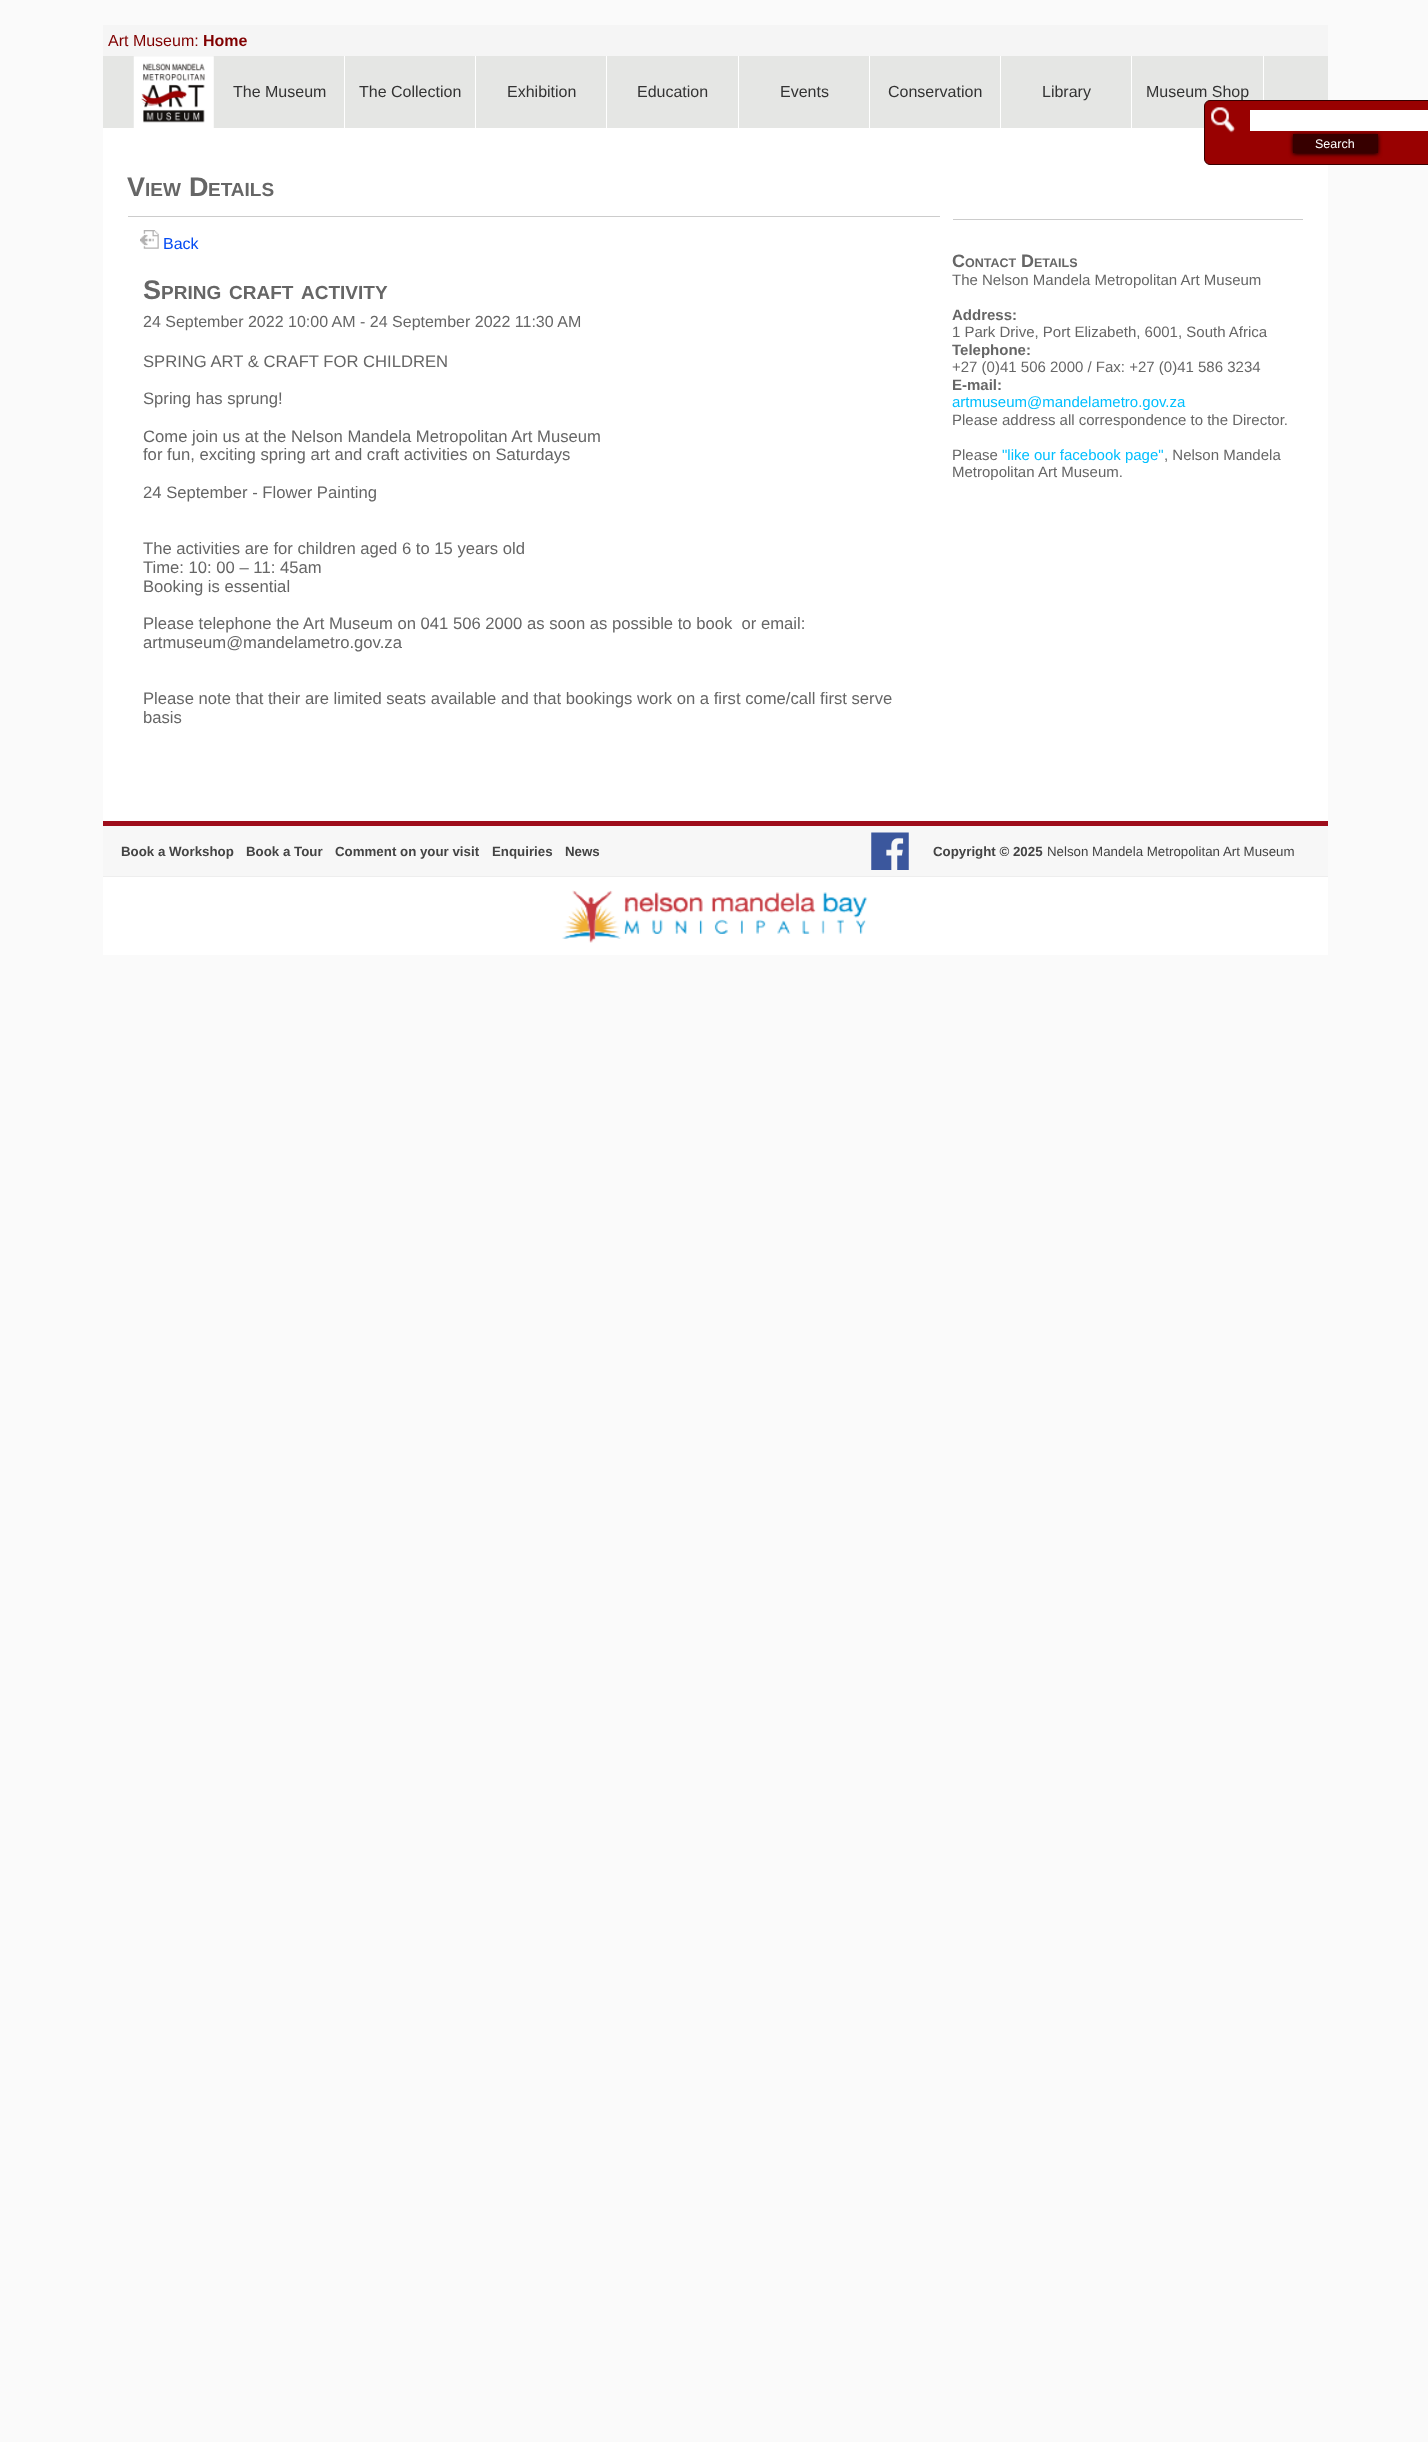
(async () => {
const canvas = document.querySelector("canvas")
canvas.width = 1428
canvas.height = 2442
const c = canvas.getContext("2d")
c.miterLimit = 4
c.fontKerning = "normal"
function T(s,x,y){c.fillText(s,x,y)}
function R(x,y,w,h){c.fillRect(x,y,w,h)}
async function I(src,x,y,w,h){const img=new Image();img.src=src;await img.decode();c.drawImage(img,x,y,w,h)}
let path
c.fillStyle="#fafafa"
R(0,0,1428,2442)
c.fillStyle="#fff"
R(103,128,1225,827)
c.fillStyle="#f5f5f5"
R(103,25,1225,31)
c.font="16px Liberation Sans"
c.fillStyle="#800000"
T("Art Museum:",108,46)
c.font="bold 16px Liberation Sans"
T("Home",203,46)
c.fillStyle="#e5e6e4"
R(103,56,1225,72)
await I("1.png",133,56,81,72)
c.fillStyle="#fff"
R(344,56,1,72)
c.font="16px Liberation Sans"
c.fillStyle="#333"
T("The Museum",233,97)
c.fillStyle="#fff"
R(475,56,1,72)
c.fillStyle="#333"
T("The Collection",359,97)
c.fillStyle="#fff"
R(606,56,1,72)
c.fillStyle="#333"
T("Exhibition",507,97)
c.fillStyle="#fff"
R(738,56,1,72)
c.fillStyle="#333"
T("Education",637,97)
c.fillStyle="#fff"
R(869,56,1,72)
c.fillStyle="#333"
T("Events",780,97)
c.fillStyle="#fff"
R(1000,56,1,72)
c.fillStyle="#333"
T("Conservation",888,97)
c.fillStyle="#fff"
R(1131,56,1,72)
c.fillStyle="#333"
T("Library",1042,97)
c.fillStyle="#fff"
R(1263,56,1,44)
c.fillStyle="#333"
T("Museum Shop",1146,97)
c.fillStyle="#990101"
path = new Path2D("M1210 100.5h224.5v64h-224.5c-3 0-5.5-2.5-5.5-5.5v-53c0-3 2.5-5.5 5.5-5.5z")
c.fill(path)
c.strokeStyle="#370000"
c.stroke(path)
await I("2.png",1211,107,25,26)
c.fillStyle="#fff"
R(1250,110,178,21)
c.fillStyle="#000"
c.filter="blur(2px)"
c.beginPath()
c.rect(1293,135,85,19)
c.fill()
c.filter="none"
c.fillStyle="#370000"
R(1293,134,85,19)
c.font="12.5px Liberation Sans"
c.fillStyle="#fff"
T("Search",1315,148)
c.fillStyle="#9e0d1b"
R(103,821,1225,5)
c.fillStyle="#f7f7f7"
R(103,826,1225,50)
c.font="bold 13.3px Liberation Sans"
c.fillStyle="#444"
T("Book a Workshop",121,856)
T("Book a Tour",246,856)
T("Comment on your visit",335,856)
T("Enquiries",492,856)
T("News",565,856)
await I("3.png",871,832,38,38)
T("Copyright © 2025",933,856)
c.font="13.3px Liberation Sans"
T("Nelson Mandela Metropolitan Art Museum",1047,856)
c.fillStyle="#eee"
R(103,876,1225,1)
await I("4.png",562,890,306,53)
c.font="bold 27px Liberation Sans"
c.fillStyle="#666"
T("V",127,196)
c.font="bold 19px Liberation Sans"
T("IEW",145,196)
c.font="bold 27px Liberation Sans"
T("D",189,196)
c.font="bold 19px Liberation Sans"
T("ETAILS",208,196)
c.fillStyle="#ccc"
R(128,216,812,1)
await I("5.png",140,230,19,19)
c.font="16px Liberation Sans"
c.fillStyle="#034af3"
T("Back",163,249)
c.font="bold 27px Liberation Sans"
c.fillStyle="#666"
T("S",143,299)
c.font="bold 19px Liberation Sans"
T("PRING",161,299)
T("CRAFT",229,299)
T("ACTIVITY",301,299)
c.font="16px Liberation Sans"
T("24 September 2022 10:00 AM - 24 September 2022 11:30 AM",143,327)
c.font="16.65px Liberation Sans"
T("SPRING ART & CRAFT FOR CHILDREN",143,367)
T("Spring has sprung!",143,404)
T("Come join us at the Nelson Mandela Metropolitan Art Museum",143,442)
T("for fun, exciting spring art and craft activities on Saturdays",143,460)
T("24 September - Flower Painting",143,498)
T("The activities are for children aged 6 to 15 years old",143,554)
T("Time: 10: 00 – 11: 45am",143,573)
T("Booking is essential",143,592)
T("Please telephone the Art Museum on 041 506 2000 as soon as possible to book  or email:",143,629)
T("artmuseum@mandelametro.gov.za",143,648)
T("Please note that their are limited seats available and that bookings work on a first come/call first serve",143,704)
T("basis",143,723)
c.fillStyle="#ccc"
R(953,219,350,1)
c.font="bold 18px Liberation Sans"
c.fillStyle="#666"
T("C",952,267)
c.font="bold 12.5px Liberation Sans"
T("ONTACT",965,267)
c.font="bold 18px Liberation Sans"
T("D",1021,267)
c.font="bold 12.5px Liberation Sans"
T("ETAILS",1034,267)
c.font="15px Liberation Sans"
T("The Nelson Mandela Metropolitan Art Museum",952,285)
c.font="bold 15px Liberation Sans"
T("Address:",952,320)
c.font="15px Liberation Sans"
T("1 Park Drive, Port Elizabeth, 6001, South Africa",952,337)
c.font="bold 15px Liberation Sans"
T("Telephone:",952,355)
c.font="15px Liberation Sans"
T("+27 (0)41 506 2000 / Fax: +27 (0)41 586 3234",952,372)
c.font="bold 15px Liberation Sans"
T("E-mail:",952,390)
c.font="15px Liberation Sans"
c.fillStyle="#00bfff"
T("artmuseum@mandelametro.gov.za",952,407)
c.fillStyle="#666"
T("Please address all correspondence to the Director.",952,425)
T("Please",952,460)
c.fillStyle="#00bfff"
T("\"like our facebook page\"",1002,460)
c.fillStyle="#666"
T(", Nelson Mandela",1164,460)
T("Metropolitan Art Museum.",952,477)
})()
